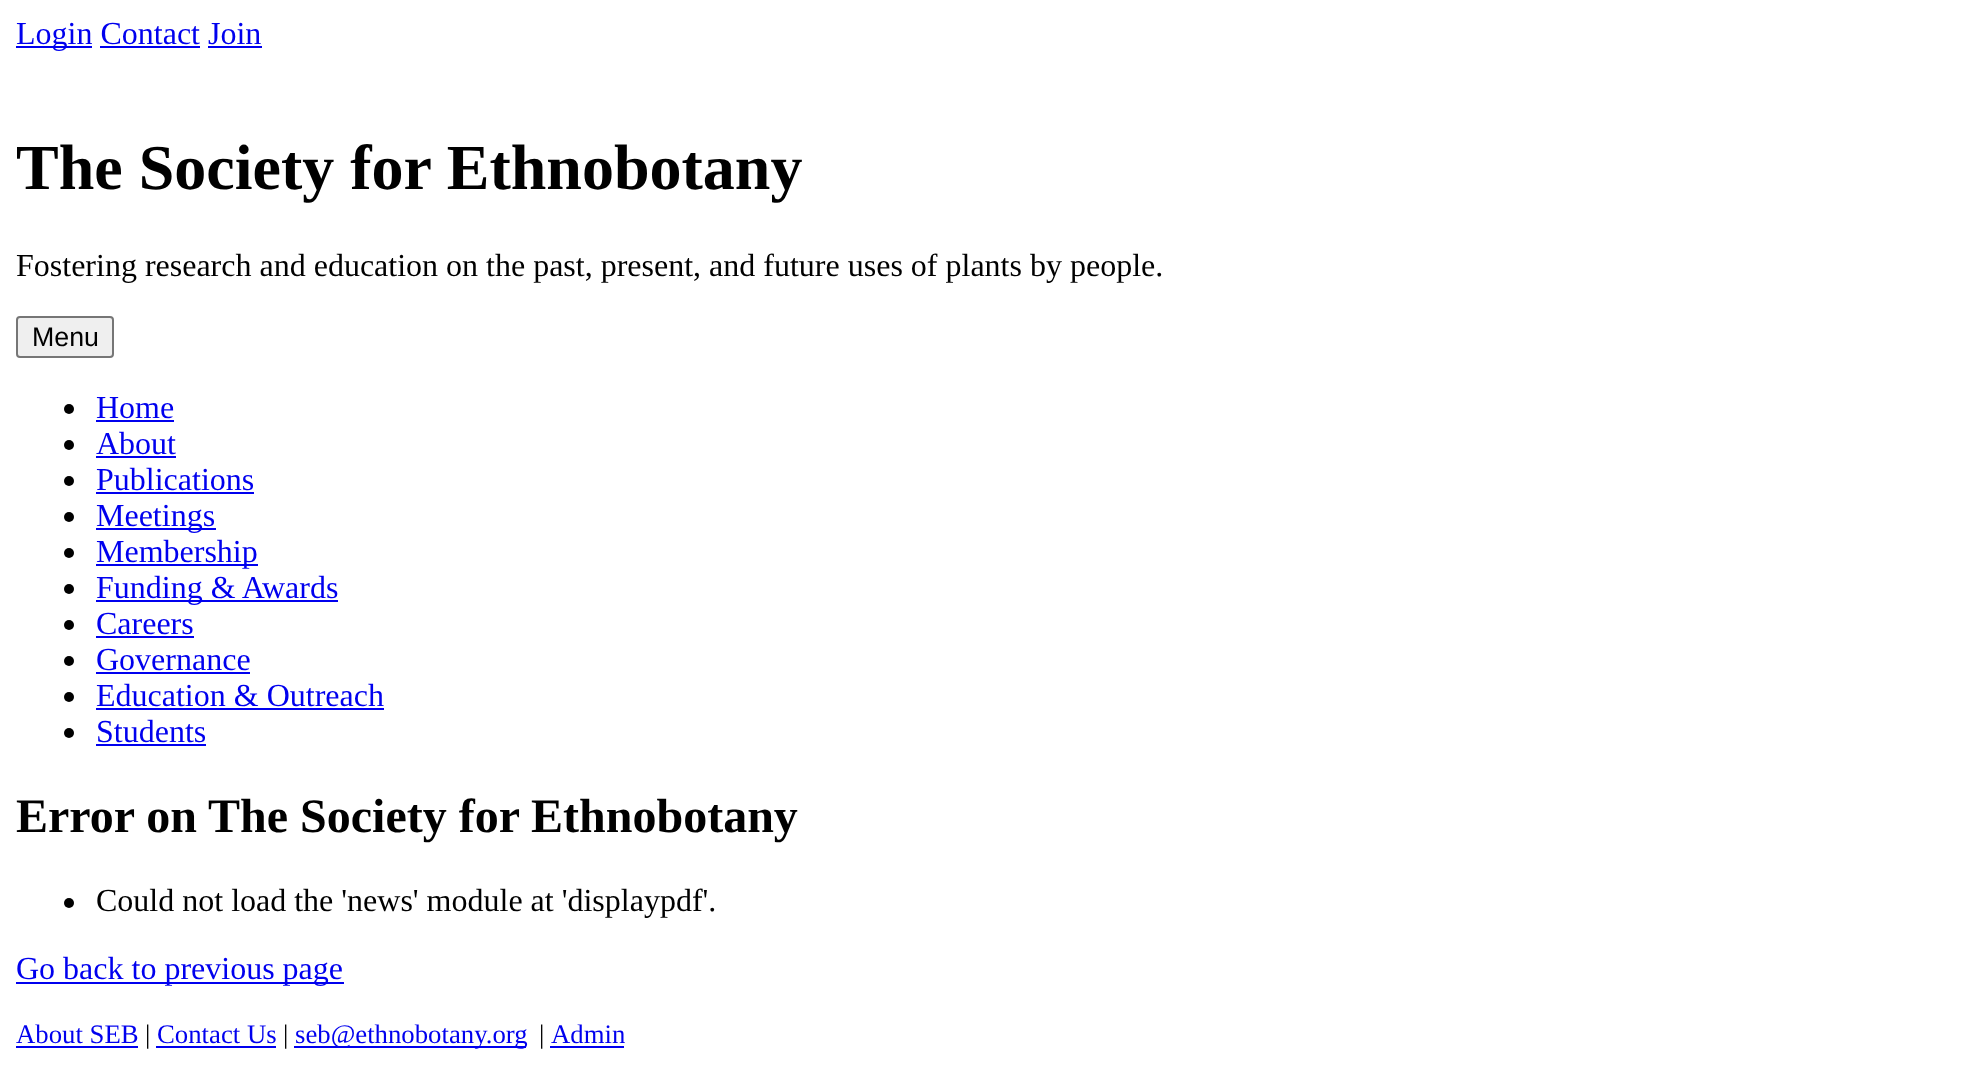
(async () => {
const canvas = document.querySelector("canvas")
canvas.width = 1976
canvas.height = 1082
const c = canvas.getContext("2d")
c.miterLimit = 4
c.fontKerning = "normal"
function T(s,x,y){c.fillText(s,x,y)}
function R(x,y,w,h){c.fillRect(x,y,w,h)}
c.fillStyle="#fff"
R(0,0,1976,1082)
c.fillStyle="#00e"
R(16,46,76,2)
c.font="32px Liberation Serif"
T("Login Contact Join",16,44)
R(100,46,100,2)
R(208,46,54,2)
c.font="bold 64px Liberation Serif"
c.fillStyle="#000"
T("The Society for Ethnobotany",16,189)
c.font="32px Liberation Serif"
T("Fostering research and education on the past, present, and future uses of plants by people.",16,276)
c.fillStyle="#efefef"
c.beginPath()
c.roundRect(17,317,96,40,3)
c.fill()
c.strokeStyle="#767676"
c.lineWidth=2
c.stroke()
c.font="26.75px Liberation Sans"
c.fillStyle="#000"
T("Menu",32,346)
c.beginPath()
c.arc(69,409,5,0,7)
c.fill()
c.font="32px Liberation Serif"
c.fillStyle="#00e"
T("Home",96,418)
R(96,420,78,2)
c.fillStyle="#000"
c.beginPath()
c.arc(69,445,5,0,7)
c.fill()
c.fillStyle="#00e"
T("About",96,454)
R(96,456,80,2)
c.fillStyle="#000"
c.beginPath()
c.arc(69,481,5,0,7)
c.fill()
c.fillStyle="#00e"
T("Publications",96,490)
R(96,492,158,2)
c.fillStyle="#000"
c.beginPath()
c.arc(69,517,5,0,7)
c.fill()
c.fillStyle="#00e"
R(96,528,120,2)
T("Meetings",96,526)
c.fillStyle="#000"
c.beginPath()
c.arc(69,553,5,0,7)
c.fill()
c.fillStyle="#00e"
R(96,564,162,2)
T("Membership",96,562)
c.fillStyle="#000"
c.beginPath()
c.arc(69,589,5,0,7)
c.fill()
c.fillStyle="#00e"
R(96,600,242,2)
T("Funding & Awards",96,598)
c.fillStyle="#000"
c.beginPath()
c.arc(69,625,5,0,7)
c.fill()
c.fillStyle="#00e"
T("Careers",96,634)
R(96,636,98,2)
c.fillStyle="#000"
c.beginPath()
c.arc(69,661,5,0,7)
c.fill()
c.fillStyle="#00e"
T("Governance",96,670)
R(96,672,154,2)
c.fillStyle="#000"
c.beginPath()
c.arc(69,697,5,0,7)
c.fill()
c.fillStyle="#00e"
T("Education & Outreach",96,706)
R(96,708,288,2)
c.fillStyle="#000"
c.beginPath()
c.arc(69,733,5,0,7)
c.fill()
c.fillStyle="#00e"
T("Students",96,742)
R(96,744,110,2)
c.font="bold 48px Liberation Serif"
c.fillStyle="#000"
T("Error on The Society for Ethnobotany",16,832)
c.beginPath()
c.arc(69,903,5,0,7)
c.fill()
c.font="32px Liberation Serif"
T("Could not load the 'news' module at 'displaypdf'.",96,911)
c.fillStyle="#00e"
R(16,982,328,2)
T("Go back to previous page",16,979)
c.font="26.75px Liberation Serif"
T("About SEB",16,1043)
R(16,1046,122,2)
c.fillStyle="#000"
T("|",145,1043)
c.fillStyle="#00e"
T("Contact Us",157,1043)
R(156,1046,120,2)
c.fillStyle="#000"
T("|",283,1043)
c.fillStyle="#00e"
R(294,1046,232,2)
T("seb@ethnobotany.org",295,1043)
c.fillStyle="#000"
T("|",539,1043)
c.fillStyle="#00e"
T("Admin",551,1043)
R(550,1046,74,2)
})()
